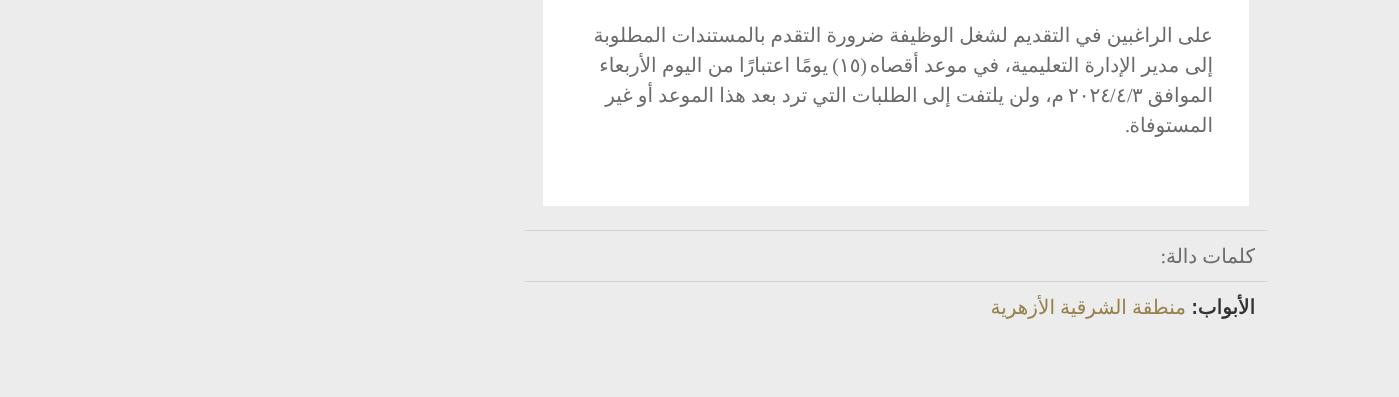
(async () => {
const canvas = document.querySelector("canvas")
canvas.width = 1399
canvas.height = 397
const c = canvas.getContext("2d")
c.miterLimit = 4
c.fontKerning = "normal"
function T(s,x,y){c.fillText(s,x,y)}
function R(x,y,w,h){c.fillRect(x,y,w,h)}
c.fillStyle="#ececec"
R(0,0,1399,397)
c.fillStyle="#fff"
R(543,0,706,206)
c.wordSpacing="-1.25px"
c.direction="rtl"
c.font="20px DejaVu Sans"
c.fillStyle="#6b6b6b"
T("على الراغبين في التقديم لشغل الوظيفة ضرورة التقدم بالمستندات المطلوبة",1213,42)
c.wordSpacing="-1px"
T("إلى مدير الإدارة التعليمية، في موعد أقصاه",1213,72)
c.wordSpacing="0px"
c.font="20px Liberation Serif"
T("(",867,72)
c.direction="ltr"
c.font="20px DejaVu Sans"
T("١٥",839,72)
c.direction="rtl"
c.font="20px Liberation Serif"
T(")",839,72)
c.wordSpacing="-1px"
c.font="20px DejaVu Sans"
T("يومًا اعتبارًا من اليوم الأربعاء",828,72)
c.wordSpacing="0px"
T("الموافق",1213,102)
c.direction="ltr"
T("٣",1132,102)
c.font="20px Liberation Serif"
T("/",1127,102)
c.font="20px DejaVu Sans"
T("٤",1116,102)
c.font="20px Liberation Serif"
T("/",1110,102)
c.wordSpacing="-1.25px"
c.direction="rtl"
c.font="20px DejaVu Sans"
T("م، ولن يلتفت إلى الطلبات التي ترد بعد هذا الموعد أو غير",1064,102)
c.wordSpacing="0px"
c.direction="ltr"
T("٢٠٢٤",1068,102)
c.direction="rtl"
T("المستوفاة",1213,132)
c.font="20px Liberation Serif"
T(".",1130,132)
c.fillStyle="#d4d4d4"
R(524,230,744,1)
c.wordSpacing="-1.25px"
c.font="20px DejaVu Sans"
c.fillStyle="#6b6b6b"
T("كلمات دالة",1255,263)
c.wordSpacing="0px"
c.font="20px Liberation Serif"
T(":",1166,263)
c.fillStyle="#d4d4d4"
R(524,281,744,1)
c.font="bold 20px DejaVu Sans"
c.fillStyle="#333"
T("الأبواب:",1255,314)
c.wordSpacing="-1.25px"
c.font="20px DejaVu Sans"
c.fillStyle="#97814a"
T("منطقة الشرقية الأزهرية",1186,314)
})()
